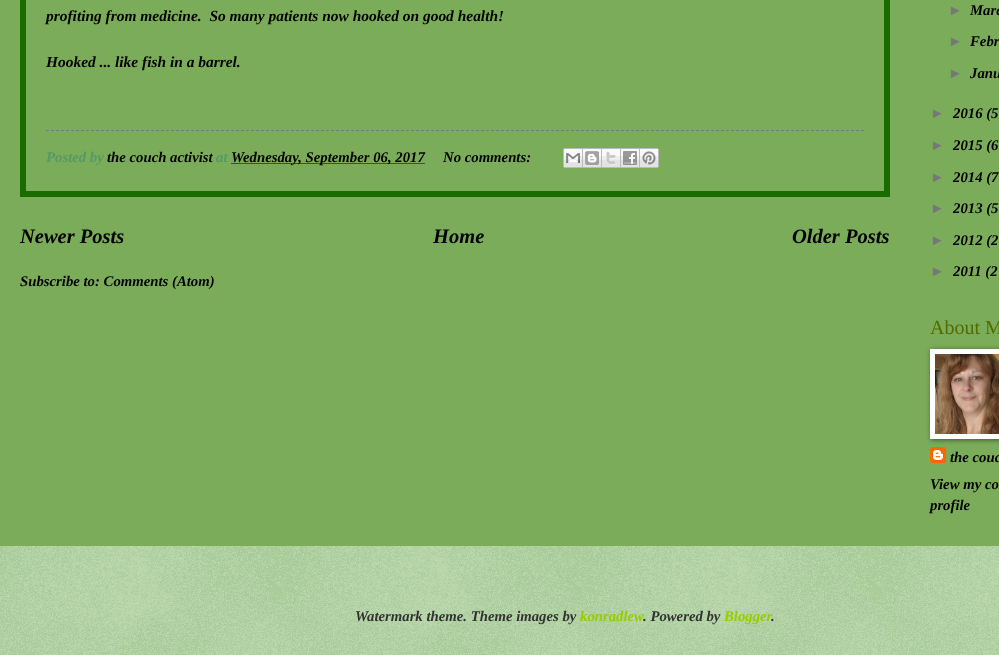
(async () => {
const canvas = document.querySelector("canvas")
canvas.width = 999
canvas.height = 655
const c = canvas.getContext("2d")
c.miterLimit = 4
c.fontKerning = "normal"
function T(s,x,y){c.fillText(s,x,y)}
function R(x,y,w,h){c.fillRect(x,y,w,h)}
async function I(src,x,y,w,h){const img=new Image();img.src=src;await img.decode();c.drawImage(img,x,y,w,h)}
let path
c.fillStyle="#7bac5a"
R(0,0,999,655)
c.strokeStyle="#1b6c00"
c.lineWidth=6
c.strokeRect(23,-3,864,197)
c.font="italic bold 15.45px Liberation Serif"
c.fillStyle="#000"
T("profiting from medicine.  So many patients now hooked on good health!",46,21)
T("Hooked ... like fish in a barrel.",46,67)
path = new Path2D("M46 130.5h818")
c.strokeStyle="#777"
c.lineWidth=1
c.setLineDash([3,2])
c.stroke(path)
c.font="italic bold 14.75px Liberation Serif"
c.fillStyle="#596"
T("Posted by",46,162)
c.fillStyle="#000"
T("the couch activist",107,162)
c.fillStyle="#596"
T("at",216,162)
path = new Path2D("M231.5 163.5h193")
c.strokeStyle="#000"
c.setLineDash([1,1])
c.stroke(path)
c.fillStyle="#000"
T("Wednesday, September 06, 2017",231,162)
T("No comments:",443,162)
await I("1.png",563,148,20,20)
await I("2.png",583,148,19,20)
await I("3.png",602,148,19,20)
await I("4.png",621,148,19,20)
await I("5.png",640,148,19,20)
c.font="italic bold 20.5px Liberation Serif"
T("Newer Posts",20,243)
T("Home",433,243)
T("Older Posts",792,243)
c.font="italic bold 14.75px Liberation Serif"
T("Subscribe to: Comments (Atom)",20,286)
c.font="italic bold 14.75px Liberation Sans"
c.fillStyle="#777"
T("►",948,15)
c.font="italic bold 14.75px Liberation Serif"
c.fillStyle="#000"
T("Marc",970,15)
c.font="italic bold 14.75px Liberation Sans"
c.fillStyle="#777"
T("►",948,46)
c.font="italic bold 14.75px Liberation Serif"
c.fillStyle="#000"
T("Febr",970,46)
c.font="italic bold 14.75px Liberation Sans"
c.fillStyle="#777"
T("►",948,78)
c.font="italic bold 14.75px Liberation Serif"
c.fillStyle="#000"
T("Janu",970,78)
c.font="italic bold 14.75px Liberation Sans"
c.fillStyle="#777"
T("►",930,118)
c.font="italic bold 14.75px Liberation Serif"
c.fillStyle="#000"
T("2016 (5",953,118)
c.font="italic bold 14.75px Liberation Sans"
c.fillStyle="#777"
T("►",930,150)
c.font="italic bold 14.75px Liberation Serif"
c.fillStyle="#000"
T("2015 (6",953,150)
c.font="italic bold 14.75px Liberation Sans"
c.fillStyle="#777"
T("►",930,182)
c.font="italic bold 14.75px Liberation Serif"
c.fillStyle="#000"
T("2014 (7",953,182)
c.font="italic bold 14.75px Liberation Sans"
c.fillStyle="#777"
T("►",930,213)
c.font="italic bold 14.75px Liberation Serif"
c.fillStyle="#000"
T("2013 (5",953,213)
c.font="italic bold 14.75px Liberation Sans"
c.fillStyle="#777"
T("►",930,245)
c.font="italic bold 14.75px Liberation Serif"
c.fillStyle="#000"
T("2012 (2",953,245)
c.font="italic bold 14.75px Liberation Sans"
c.fillStyle="#777"
T("►",930,276)
c.font="italic bold 14.75px Liberation Serif"
c.fillStyle="#000"
T("2011 (2",953,276)
c.font="20px Liberation Serif"
c.fillStyle="#516c00"
T("About M",930,334)
await I("7.png",930,447,16,16)
c.fillStyle="#00000080"
c.filter="blur(2.5px)"
c.beginPath()
c.rect(931,350,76,90)
c.fill()
c.filter="none"
c.fillStyle="#fff"
R(930,349,69,90)
await I("6.png",935,354,64,80)
c.font="italic bold 14.75px Liberation Serif"
c.fillStyle="#000"
T("the couc",950,462)
T("View my co",930,489)
T("profile",930,510)
c.fillStyle="#6aa84f"
R(0,546,999,109)
await I("8.png",0,546,999,109)
c.fillStyle="#323232"
T("Watermark theme. Theme images by",355,621)
c.fillStyle="#98cb00"
T("konradlew",580,621)
c.fillStyle="#323232"
T(". Powered by",643,621)
c.fillStyle="#98cb00"
T("Blogger",724,621)
c.fillStyle="#323232"
T(".",771,621)
})()
